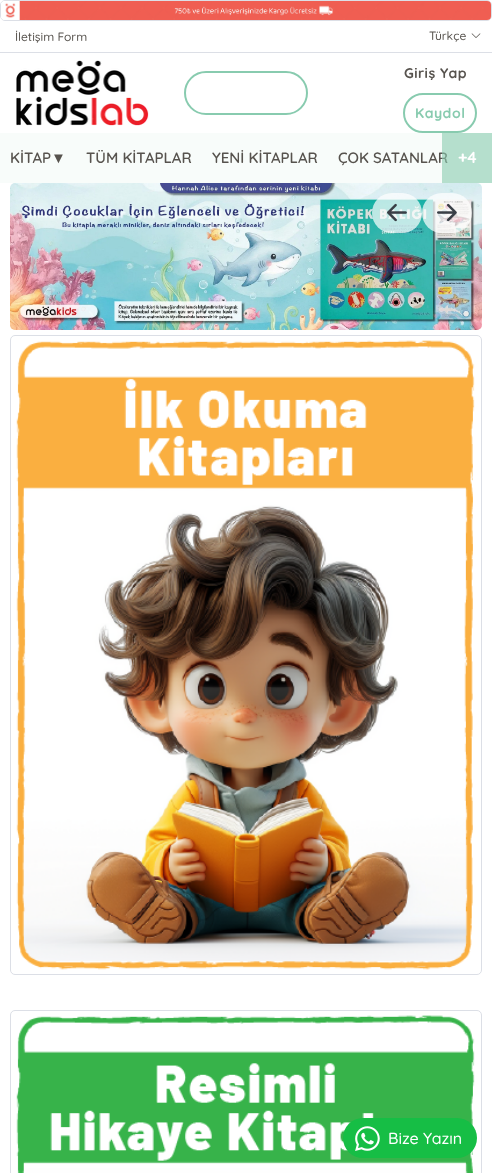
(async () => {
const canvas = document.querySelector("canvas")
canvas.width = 492
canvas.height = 1173
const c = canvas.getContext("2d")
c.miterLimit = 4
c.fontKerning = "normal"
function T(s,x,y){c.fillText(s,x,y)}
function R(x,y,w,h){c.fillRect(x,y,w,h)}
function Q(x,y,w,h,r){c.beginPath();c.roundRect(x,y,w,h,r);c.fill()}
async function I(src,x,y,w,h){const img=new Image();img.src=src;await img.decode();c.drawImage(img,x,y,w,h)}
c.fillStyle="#fff"
R(0,0,492,1173)
c.beginPath()
c.roundRect(.5,.5,491,20,4.5)
c.strokeStyle="#dcdfe6"
c.stroke()
await I("1.png",1,1,490,19)
c.fillStyle="#dcdfe6"
R(0,52,492,1)
c.font="300 12px Quicksand"
c.fillStyle="#57534e"
T("İletişim Form",15,41)
T("Türkçe",429,40)
await I("2.png",471,33,10,5)
await I("3.png",16,60,133,66)
c.beginPath()
c.roundRect(185,72,122,42,21)
c.strokeStyle="#88cbaf"
c.lineWidth=2
c.stroke()
c.letterSpacing="0.5px"
c.font="300 14px 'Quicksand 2'"
T("Giriş Yap",404,78)
c.beginPath()
c.roundRect(404,94,72,38,19)
c.stroke()
c.fillStyle="#88cbaf"
T("Kaydol",415,118)
c.fillStyle="#f8fcfa"
R(0,133,492,50)
c.letterSpacing="0px"
c.font="600 15px Quicksand"
c.fillStyle="#57534e"
T("KİTAP",10,163)
c.font="bold 15px Liberation Serif"
T("▼",51,163)
c.font="600 15px Quicksand"
T("TÜM KİTAPLAR",86,163)
T("YENİ KİTAPLAR",212,163)
T("ÇOK SATANLAR",338,163)
c.fillStyle="#88cbaf99"
R(442,133,50,50)
c.font="300 16px 'Quicksand 2'"
c.fillStyle="#fff"
T("+4",458,163)
await I("4.png",10,183,472,147)
c.fillStyle="#ffffffb3"
Q(372,193,50,40,20)
await I("5.png",387,203,20,19)
Q(422,193,50,40,20)
await I("6.png",437,203,20,19)
c.beginPath()
c.roundRect(10.5,335.5,471,639,4.5)
c.strokeStyle="#dcdfe6"
c.lineWidth=1
c.stroke()
await I("7.png",16,340,459,630)
c.beginPath()
c.roundRect(10.5,1010.5,471,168,4.5)
c.stroke()
await I("8.png",16,1015,459,158)
c.fillStyle="#16be45"
Q(343,1118,134,40,20)
await I("9.png",355,1126,25,25)
c.font="300 16px Quicksand"
c.fillStyle="#fff"
T("Bize Yazın",388,1144)
})()
